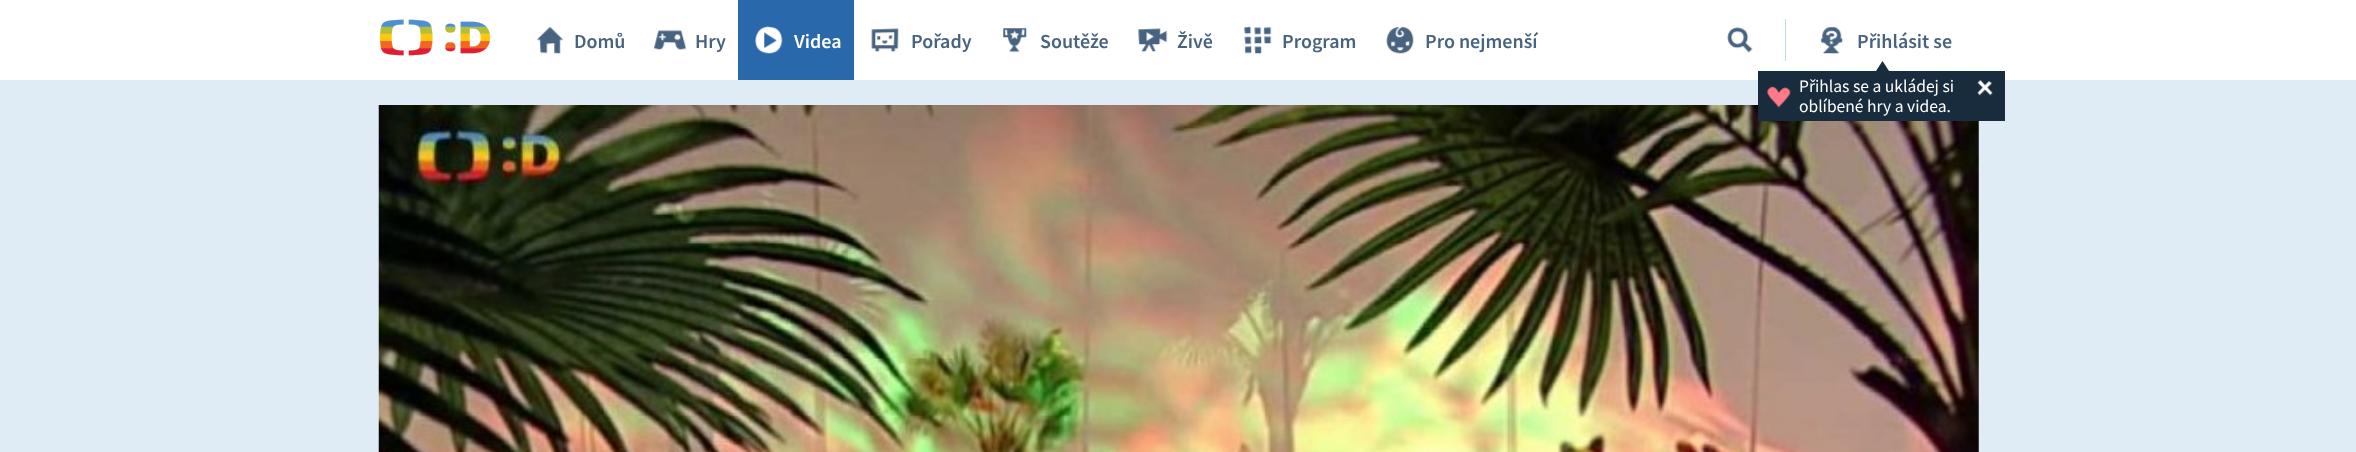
(async () => {
const canvas = document.querySelector("canvas")
canvas.width = 2356
canvas.height = 452
const c = canvas.getContext("2d")
c.miterLimit = 4
c.fontKerning = "normal"
function T(s,x,y){c.fillText(s,x,y)}
function R(x,y,w,h){c.fillRect(x,y,w,h)}
async function I(src,x,y,w,h){const img=new Image();img.src=src;await img.decode();c.drawImage(img,x,y,w,h)}
let path
c.fillStyle="#e0ecf5"
R(0,0,2356,452)
c.fillStyle="#fff"
R(0,0,2356,80)
await I("1.png",379,19,112,37)
await I("2.png",536,26,28,28)
c.font="600 20px Source Sans Pro"
c.fillStyle="#486380"
T("Domů",574,48)
await I("3.png",653,30,34,20)
T("Hry",695,48)
c.fillStyle="#2969ab"
R(738,0,116,80)
await I("4.png",755,26,28,28)
c.fillStyle="#fff"
T("Videa",794,48)
await I("5.png",871,28,28,24)
c.fillStyle="#486380"
T("Pořady",911,48)
await I("6.png",1003,28,24,25)
T("Soutěže",1040,48)
await I("7.png",1138,28,30,24)
T("Živě",1177,48)
await I("8.png",1244,26,28,28)
T("Program",1282,48)
await I("9.png",1386,26,28,28)
T("Pro nejmenší",1425,48)
await I("10.png",1727,27,26,26)
c.fillStyle="#c3d7e6"
R(1785,19,1,42)
await I("11.png",1820,26,23,28)
c.fillStyle="#486380"
T("Přihlásit se",1857,48)
await I("14.png",378,105,1601,347)
c.fillStyle="#192c3d"
R(1758,71,247,50)
path = new Path2D("M1889 71h-13l6.5-10z")
c.fill(path)
await I("12.png",1767,86,24,22)
c.font="17.5px Source Sans Pro"
c.fillStyle="#fff"
T("Přihlas se a ukládej si",1799,92)
T("oblíbené hry a videa.",1799,112)
await I("13.png",1977,80,16,16)
})()
